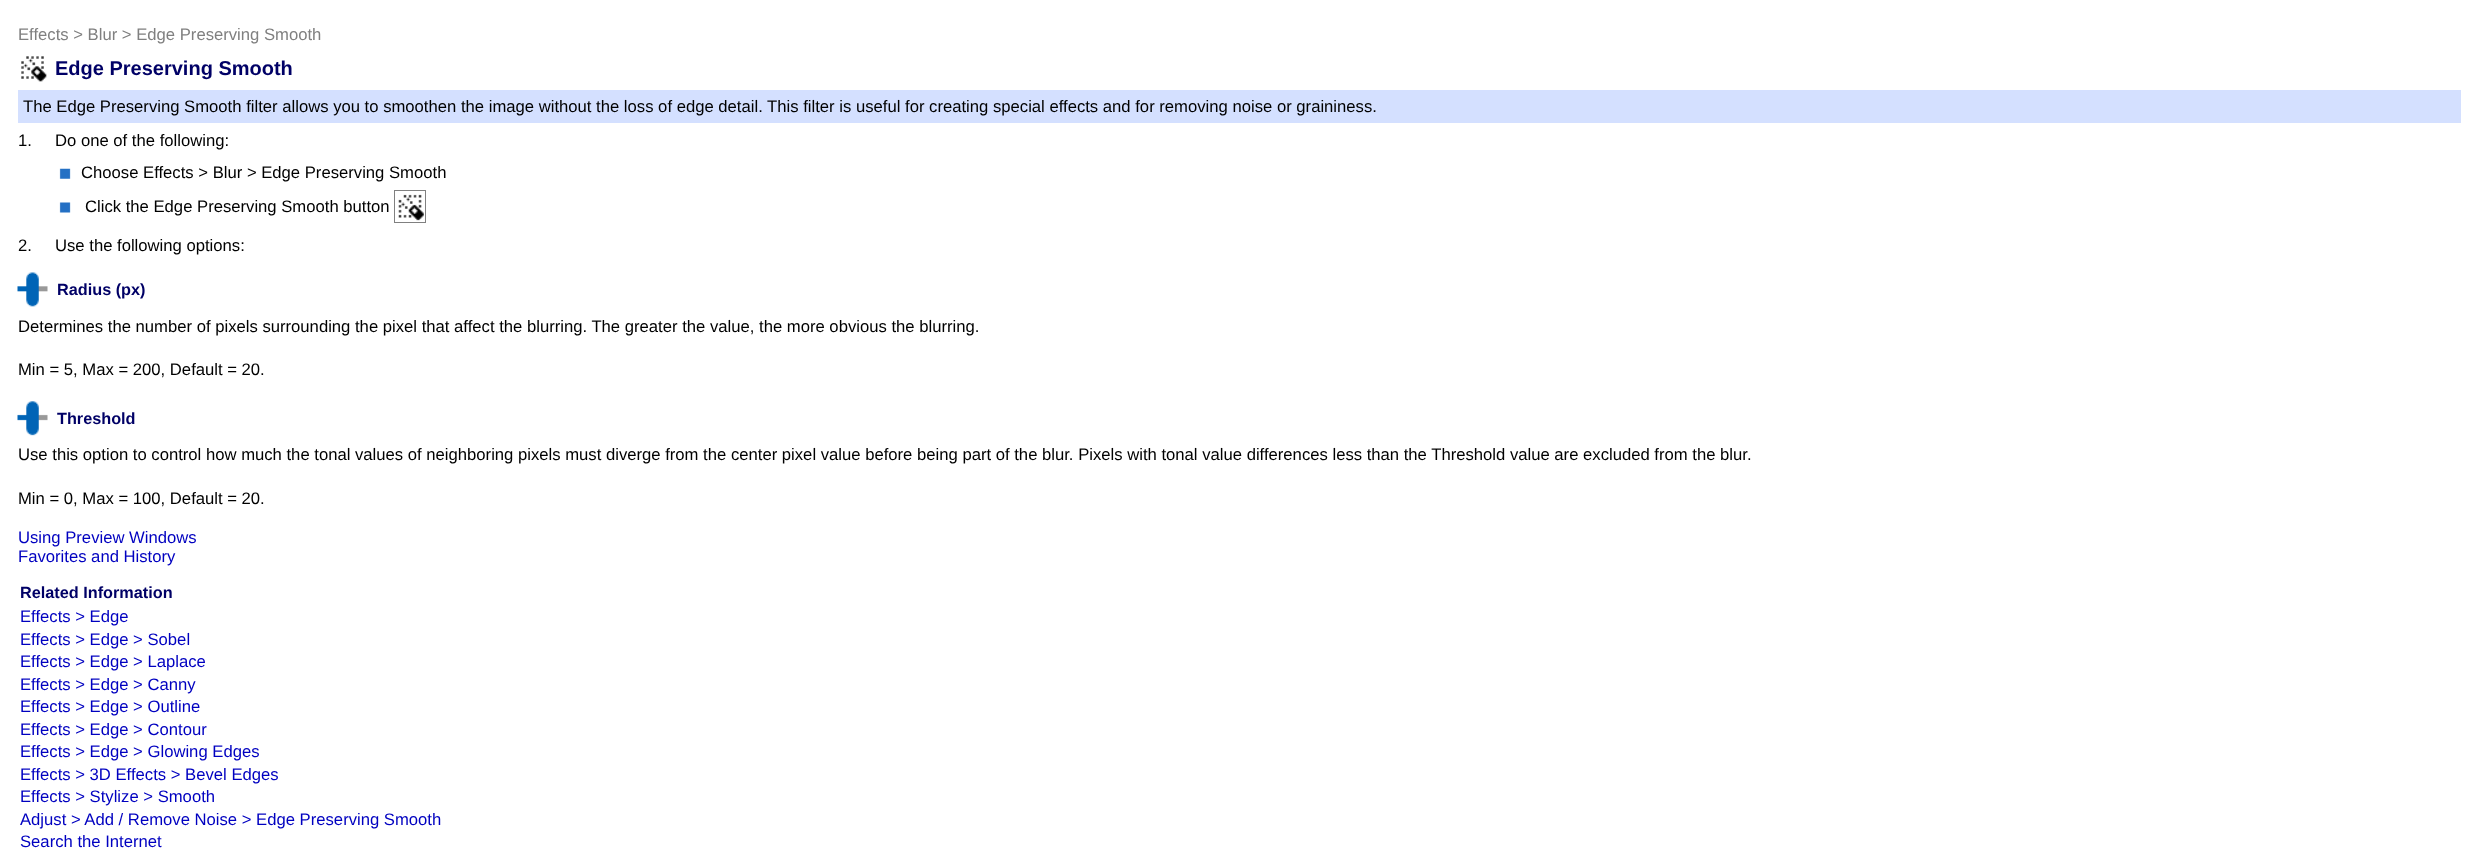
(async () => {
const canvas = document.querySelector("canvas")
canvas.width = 2478
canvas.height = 862
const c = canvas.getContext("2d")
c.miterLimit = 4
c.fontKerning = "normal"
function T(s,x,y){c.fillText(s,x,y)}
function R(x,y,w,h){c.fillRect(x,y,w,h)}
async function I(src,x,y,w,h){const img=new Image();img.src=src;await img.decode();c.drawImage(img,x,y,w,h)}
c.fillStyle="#fff"
R(0,0,2478,862)
c.font="16.67px Liberation Sans"
c.fillStyle="#808080"
T("Effects > Blur > Edge Preserving Smooth",18,40)
await I("1.png",21,56,26,26)
c.font="bold 20px Liberation Sans"
c.fillStyle="#006"
T("Edge Preserving Smooth",55,75)
c.fillStyle="#d4e0ff"
R(18,90,2443,33)
c.font="16.67px Liberation Sans"
c.fillStyle="#000"
T("The Edge Preserving Smooth filter allows you to smoothen the image without the loss of edge detail. This filter is useful for creating special effects and for removing noise or graininess.",23,112)
T("1.",18,146)
T("Do one of the following:",55,146)
await I("2.png",59,168,12,11)
T("Choose Effects > Blur > Edge Preserving Smooth",81,178)
await I("3.png",59,202,12,11)
T("Click the Edge Preserving Smooth button",85,212)
c.strokeStyle="#808080"
c.strokeRect(394.5,190.5,31,32)
await I("4.png",398,194,26,27)
T("2.",18,251)
T("Use the following options:",55,251)
await I("5.png",17,272,31,35)
c.font="bold 16.25px Liberation Sans"
c.fillStyle="#006"
T("Radius (px)",57,295)
c.font="16.67px Liberation Sans"
c.fillStyle="#000"
T("Determines the number of pixels surrounding the pixel that affect the blurring. The greater the value, the more obvious the blurring.",18,332)
T("Min = 5, Max = 200, Default = 20.",18,375)
await I("6.png",17,401,31,35)
c.font="bold 16.25px Liberation Sans"
c.fillStyle="#006"
T("Threshold",57,424)
c.font="16.67px Liberation Sans"
c.fillStyle="#000"
T("Use this option to control how much the tonal values of neighboring pixels must diverge from the center pixel value before being part of the blur. Pixels with tonal value differences less than the Threshold value are excluded from the blur.",18,460)
T("Min = 0, Max = 100, Default = 20.",18,504)
c.fillStyle="#0000c0"
T("Using Preview Windows",18,543)
T("Favorites and History",18,562)
c.font="bold 16.25px Liberation Sans"
c.fillStyle="#006"
T("Related Information",20,598)
c.font="16.67px Liberation Sans"
c.fillStyle="#0000c0"
T("Effects > Edge",20,622)
T("Effects > Edge > Sobel",20,645)
T("Effects > Edge > Laplace",20,667)
T("Effects > Edge > Canny",20,690)
T("Effects > Edge > Outline",20,712)
T("Effects > Edge > Contour",20,735)
T("Effects > Edge > Glowing Edges",20,757)
T("Effects > 3D Effects > Bevel Edges",20,780)
T("Effects > Stylize > Smooth",20,802)
T("Adjust > Add / Remove Noise > Edge Preserving Smooth",20,825)
T("Search the Internet",20,847)
})()
